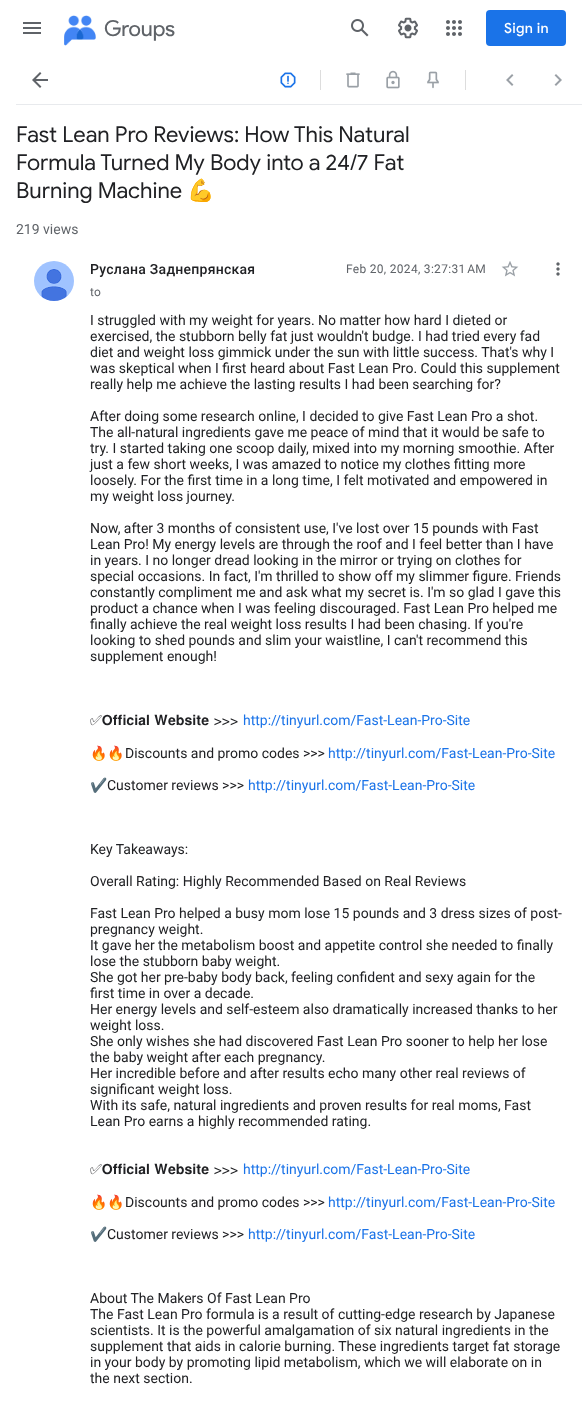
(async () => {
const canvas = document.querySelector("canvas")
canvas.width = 582
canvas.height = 1406
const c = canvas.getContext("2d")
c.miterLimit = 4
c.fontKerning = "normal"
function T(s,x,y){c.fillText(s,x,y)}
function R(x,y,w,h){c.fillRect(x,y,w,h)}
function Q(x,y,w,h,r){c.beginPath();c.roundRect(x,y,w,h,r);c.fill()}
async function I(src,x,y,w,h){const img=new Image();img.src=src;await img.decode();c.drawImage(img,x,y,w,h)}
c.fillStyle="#fff"
R(0,0,582,1406)
await I("1.png",23,22,18,12)
await I("2.png",64,15,32,31)
c.font="22px Product Sans"
c.fillStyle="#5f6368"
T("Groups",104,36)
await I("3.png",351,19,18,18)
await I("4.png",398,17,20,22)
await I("5.png",446,20,16,16)
c.fillStyle="#1a73e8"
Q(486,10,80,36,4)
c.letterSpacing="0.25px"
c.font="500 14px Google Sans"
c.fillStyle="#fff"
T("Sign in",504,33)
c.fillStyle="#e8eaed"
R(16,104,566,1)
await I("6.png",32,72,16,16)
await I("7.png",280,72,16,16)
c.fillStyle="#ddd"
R(320,70,1,20)
await I("8.png",346,72,14,16)
await I("9.png",386,70,14,19)
await I("10.png",427,71,12,18)
R(465,70,1,20)
await I("11.png",506,74,8,12)
await I("12.png",554,74,8,12)
c.letterSpacing="0px"
c.font="22px Google Sans"
c.fillStyle="#202124"
T("Fast Lean Pro Reviews: How This Natural",16,142)
T("Formula Turned My Body into a 24/7 Fat",16,170)
T("Burning Machine",16,198)
c.font="22px Noto Color Emoji"
T("💪",187,198)
c.font="14px Roboto"
c.fillStyle="#5f6368"
T("219 views",16,234)
await I("13.png",34,261,40,40)
c.letterSpacing="0.25px"
c.font="500 14px Roboto"
c.fillStyle="#202124"
T("Руслана Заднепрянская",90,274)
c.letterSpacing="0.3px"
c.font="12px Roboto"
c.fillStyle="#5f6368"
T("Feb 20, 2024, 3:27:31 AM",346,273)
await I("14.png",501,261,18,16)
await I("15.png",556,262,4,14)
T("to",90,296)
c.letterSpacing="0px"
c.font="14px Roboto"
c.fillStyle="#202124"
T("I struggled with my weight for years. No matter how hard I dieted or",90,325)
T("exercised, the stubborn belly fat just wouldn't budge. I had tried every fad",90,341)
T("diet and weight loss gimmick under the sun with little success. That's why I",90,357)
T("was skeptical when I first heard about Fast Lean Pro. Could this supplement",90,373)
T("really help me achieve the lasting results I had been searching for?",90,389)
T("After doing some research online, I decided to give Fast Lean Pro a shot.",90,421)
T("The all-natural ingredients gave me peace of mind that it would be safe to",90,437)
T("try. I started taking one scoop daily, mixed into my morning smoothie. After",90,453)
T("just a few short weeks, I was amazed to notice my clothes fitting more",90,469)
T("loosely. For the first time in a long time, I felt motivated and empowered in",90,485)
T("my weight loss journey.",90,501)
T("Now, after 3 months of consistent use, I've lost over 15 pounds with Fast",90,533)
T("Lean Pro! My energy levels are through the roof and I feel better than I have",90,549)
T("in years. I no longer dread looking in the mirror or trying on clothes for",90,565)
T("special occasions. In fact, I'm thrilled to show off my slimmer figure. Friends",90,581)
T("constantly compliment me and ask what my secret is. I'm so glad I gave this",90,597)
T("product a chance when I was feeling discouraged. Fast Lean Pro helped me",90,613)
T("finally achieve the real weight loss results I had been chasing. If you're",90,629)
T("looking to shed pounds and slim your waistline, I can't recommend this",90,645)
T("supplement enough!",90,661)
c.wordSpacing="1px"
c.font="14px FreeSans"
T("✅𝐎𝐟𝐟𝐢𝐜𝐢𝐚𝐥 𝐖𝐞𝐛𝐬𝐢𝐭𝐞 >>>",90,725)
c.wordSpacing="0px"
c.font="14px Roboto"
c.fillStyle="#1a73e8"
T("http://tinyurl.com/Fast-Lean-Pro-Site",243,725)
c.font="14px Noto Color Emoji"
c.fillStyle="#202124"
T("🔥🔥",90,758)
c.font="14px Roboto"
T("Discounts and promo codes >>>",125,758)
c.fillStyle="#1a73e8"
T("http://tinyurl.com/Fast-Lean-Pro-Site",328,758)
c.font="14px Noto Color Emoji"
c.fillStyle="#202124"
T("✔️",90,790)
c.font="14px Roboto"
T("Customer reviews >>>",107,790)
c.fillStyle="#1a73e8"
T("http://tinyurl.com/Fast-Lean-Pro-Site",248,790)
c.fillStyle="#202124"
T("Key Takeaways:",90,854)
T("Overall Rating: Highly Recommended Based on Real Reviews",90,886)
T("Fast Lean Pro helped a busy mom lose 15 pounds and 3 dress sizes of post-",90,918)
T("pregnancy weight.",90,934)
T("It gave her the metabolism boost and appetite control she needed to finally",90,950)
T("lose the stubborn baby weight.",90,966)
T("She got her pre-baby body back, feeling confident and sexy again for the",90,982)
T("first time in over a decade.",90,998)
T("Her energy levels and self-esteem also dramatically increased thanks to her",90,1014)
T("weight loss.",90,1030)
T("She only wishes she had discovered Fast Lean Pro sooner to help her lose",90,1046)
T("the baby weight after each pregnancy.",90,1062)
T("Her incredible before and after results echo many other real reviews of",90,1078)
T("significant weight loss.",90,1094)
T("With its safe, natural ingredients and proven results for real moms, Fast",90,1110)
T("Lean Pro earns a highly recommended rating.",90,1126)
c.wordSpacing="1px"
c.font="14px FreeSans"
T("✅𝐎𝐟𝐟𝐢𝐜𝐢𝐚𝐥 𝐖𝐞𝐛𝐬𝐢𝐭𝐞 >>>",90,1174)
c.wordSpacing="0px"
c.font="14px Roboto"
c.fillStyle="#1a73e8"
T("http://tinyurl.com/Fast-Lean-Pro-Site",243,1174)
c.font="14px Noto Color Emoji"
c.fillStyle="#202124"
T("🔥🔥",90,1207)
c.font="14px Roboto"
T("Discounts and promo codes >>>",125,1207)
c.fillStyle="#1a73e8"
T("http://tinyurl.com/Fast-Lean-Pro-Site",328,1207)
c.font="14px Noto Color Emoji"
c.fillStyle="#202124"
T("✔️",90,1239)
c.font="14px Roboto"
T("Customer reviews >>>",107,1239)
c.fillStyle="#1a73e8"
T("http://tinyurl.com/Fast-Lean-Pro-Site",248,1239)
c.fillStyle="#202124"
T("About The Makers Of Fast Lean Pro",90,1303)
T("The Fast Lean Pro formula is a result of cutting-edge research by Japanese",90,1319)
T("scientists. It is the powerful amalgamation of six natural ingredients in the",90,1335)
T("supplement that aids in calorie burning. These ingredients target fat storage",90,1351)
T("in your body by promoting lipid metabolism, which we will elaborate on in",90,1367)
T("the next section.",90,1383)
})()
